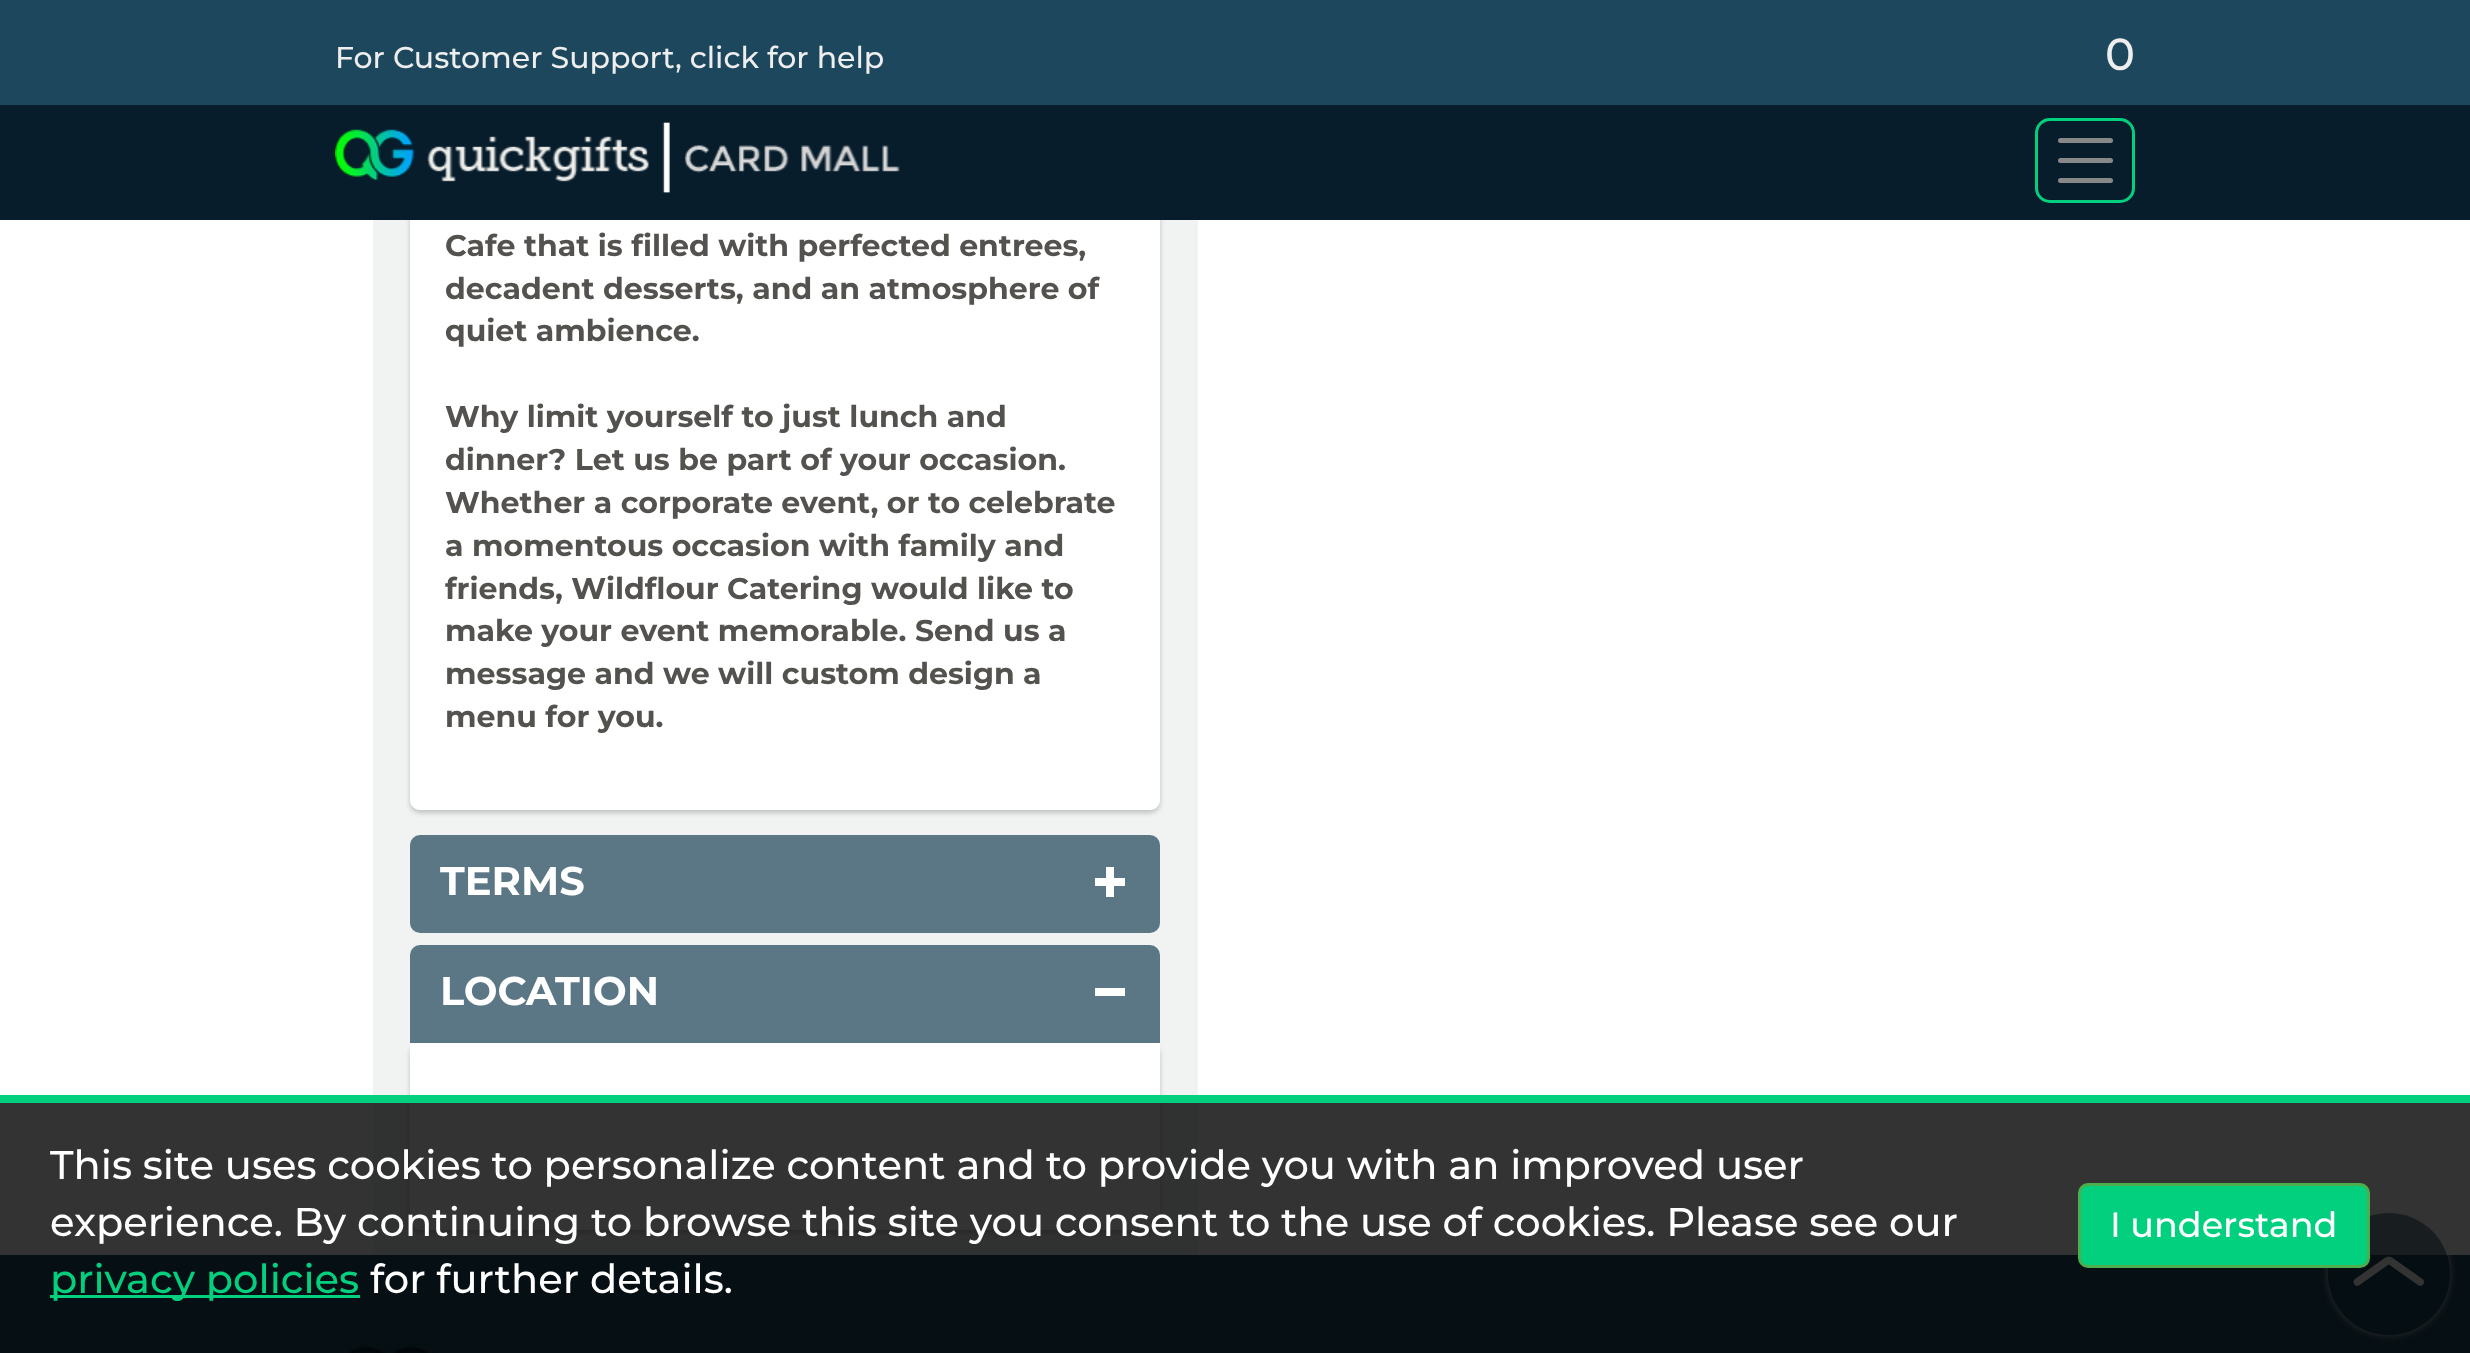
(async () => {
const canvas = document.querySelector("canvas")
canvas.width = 2470
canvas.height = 1353
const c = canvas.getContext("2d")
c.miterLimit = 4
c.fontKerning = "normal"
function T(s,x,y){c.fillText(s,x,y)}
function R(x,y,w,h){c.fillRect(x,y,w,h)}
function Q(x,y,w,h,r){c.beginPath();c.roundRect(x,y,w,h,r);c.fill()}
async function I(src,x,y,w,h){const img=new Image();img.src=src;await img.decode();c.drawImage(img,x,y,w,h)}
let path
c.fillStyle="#fff"
R(0,0,2470,1353)
c.fillStyle="#f1f3f2"
R(373,220,825,1035)
c.fillStyle="#00000033"
c.filter="blur(2.5px)"
c.beginPath()
c.roundRect(410,-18,750,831,10)
c.fill()
c.filter="none"
c.fillStyle="#fff"
path = new Path2D("M410-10h750v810c0 5.5-4.5 10-10 10h-730c-5.5 0-10-4.5-10-10z")
c.fill(path)
c.fillStyle="#1c475c"
R(0,0,2470,105)
c.font="500 30px Montserrat"
c.fillStyle="#eee"
T("For Customer Support, click for help",335,68)
c.font="500 45px Montserrat"
T("0",2105,70)
c.fillStyle="#071d2c"
R(0,105,2470,115)
await I("1.png",335,122,565,71)
c.beginPath()
c.roundRect(2036.5,119.5,97,82,13.5)
c.strokeStyle="#03d07f"
c.lineWidth=3
c.stroke()
c.fillStyle="#888"
Q(2058,178,55,5,2.5)
Q(2058,158,55,5,2.5)
Q(2058,138,55,5,2.5)
c.font="bold 30px Montserrat"
c.fillStyle="#54524f"
T("Cafe that is filled with perfected entrees,",445,256)
T("decadent desserts, and an atmosphere of",445,299)
T("quiet ambience.",445,341)
T("Why limit yourself to just lunch and",445,427)
T("dinner? Let us be part of your occasion.",445,470)
T("Whether a corporate event, or to celebrate",445,513)
T("a momentous occasion with family and",445,556)
T("friends, Wildflour Catering would like to",445,599)
T("make your event memorable. Send us a",445,641)
T("message and we will custom design a",445,684)
T("menu for you.",445,727)
c.fillStyle="#5b7684"
Q(410,835,750,98,10)
c.font="bold 40px Montserrat"
c.fillStyle="#fff"
T("TERMS",440,895)
R(1095,878,30,8)
R(1106,867,8,30)
c.fillStyle="#00000033"
c.filter="blur(2.5px)"
c.beginPath()
c.roundRect(410,1045,750,188,10)
c.fill()
c.filter="none"
c.fillStyle="#5b7684"
c.beginPath()
c.roundRect(410,945,750,98,[10,10,0,0])
c.fill()
c.fillStyle="#fff"
T("LOCATION",440,1005)
R(1095,988,30,8)
c.beginPath()
c.roundRect(410,1043,750,187,[0,0,10,10])
c.fill()
c.fillStyle="#1f4a60"
R(0,1255,2470,98)
c.save()
path = new Path2D("M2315 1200h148v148h-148zm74 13c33.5 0 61 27.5 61 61c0 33.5-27.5 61-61 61c-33.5 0-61-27.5-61-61c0-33.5 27.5-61 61-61z")
c.clip(path,"evenodd")
c.fillStyle="#ffffffcc"
c.filter="blur(4px)"
c.beginPath()
c.roundRect(2328,1213,122,122,61)
c.fill()
c.filter="none"
c.restore()
c.fillStyle="#1c475c99"
c.beginPath()
c.arc(2389,1274,61,0,7)
c.fill()
c.fillStyle="#fff"
path = new Path2D("M2355 1279l30.5-21.5c2-1.5 4-1 5.5 1c1 1.5 .5 4-1 5l-30.5 21.5c-2 1.5-4 1-5.5-1c-1-1.5-.5-4 1-5z")
c.fill(path)
path = new Path2D("M2392 1257.5l30.5 21.5c1.5 1 2 3.5 1 5c-1.5 2-3.5 2.5-5.5 1l-30.5-21.5c-1.5-1-2-3.5-1-5c1.5-2 3.5-2.5 5.5-1z")
c.fill(path)
await I("2.png",347,1342,89,11)
c.fillStyle="#000000cc"
R(0,1103,2470,250)
c.fillStyle="#03d07f"
R(0,1095,2470,8)
c.font="500 40px Montserrat"
c.fillStyle="#fff"
T("This site uses cookies to personalize content and to provide you with an improved user",50,1179)
T("experience. By continuing to browse this site you consent to the use of cookies. Please see our",50,1236)
c.fillStyle="#03d07f"
R(50,1295,310,3)
T("privacy policies",50,1293)
c.fillStyle="#fff"
T("for further details.",370,1293)
c.fillStyle="#03d07f"
c.beginPath()
c.roundRect(2079.5,1184.5,289,82,8.5)
c.fill()
c.strokeStyle="#4cae4c"
c.stroke()
c.font="500 35px Montserrat"
c.fillStyle="#fff"
T("I understand",2110,1237)
})()
